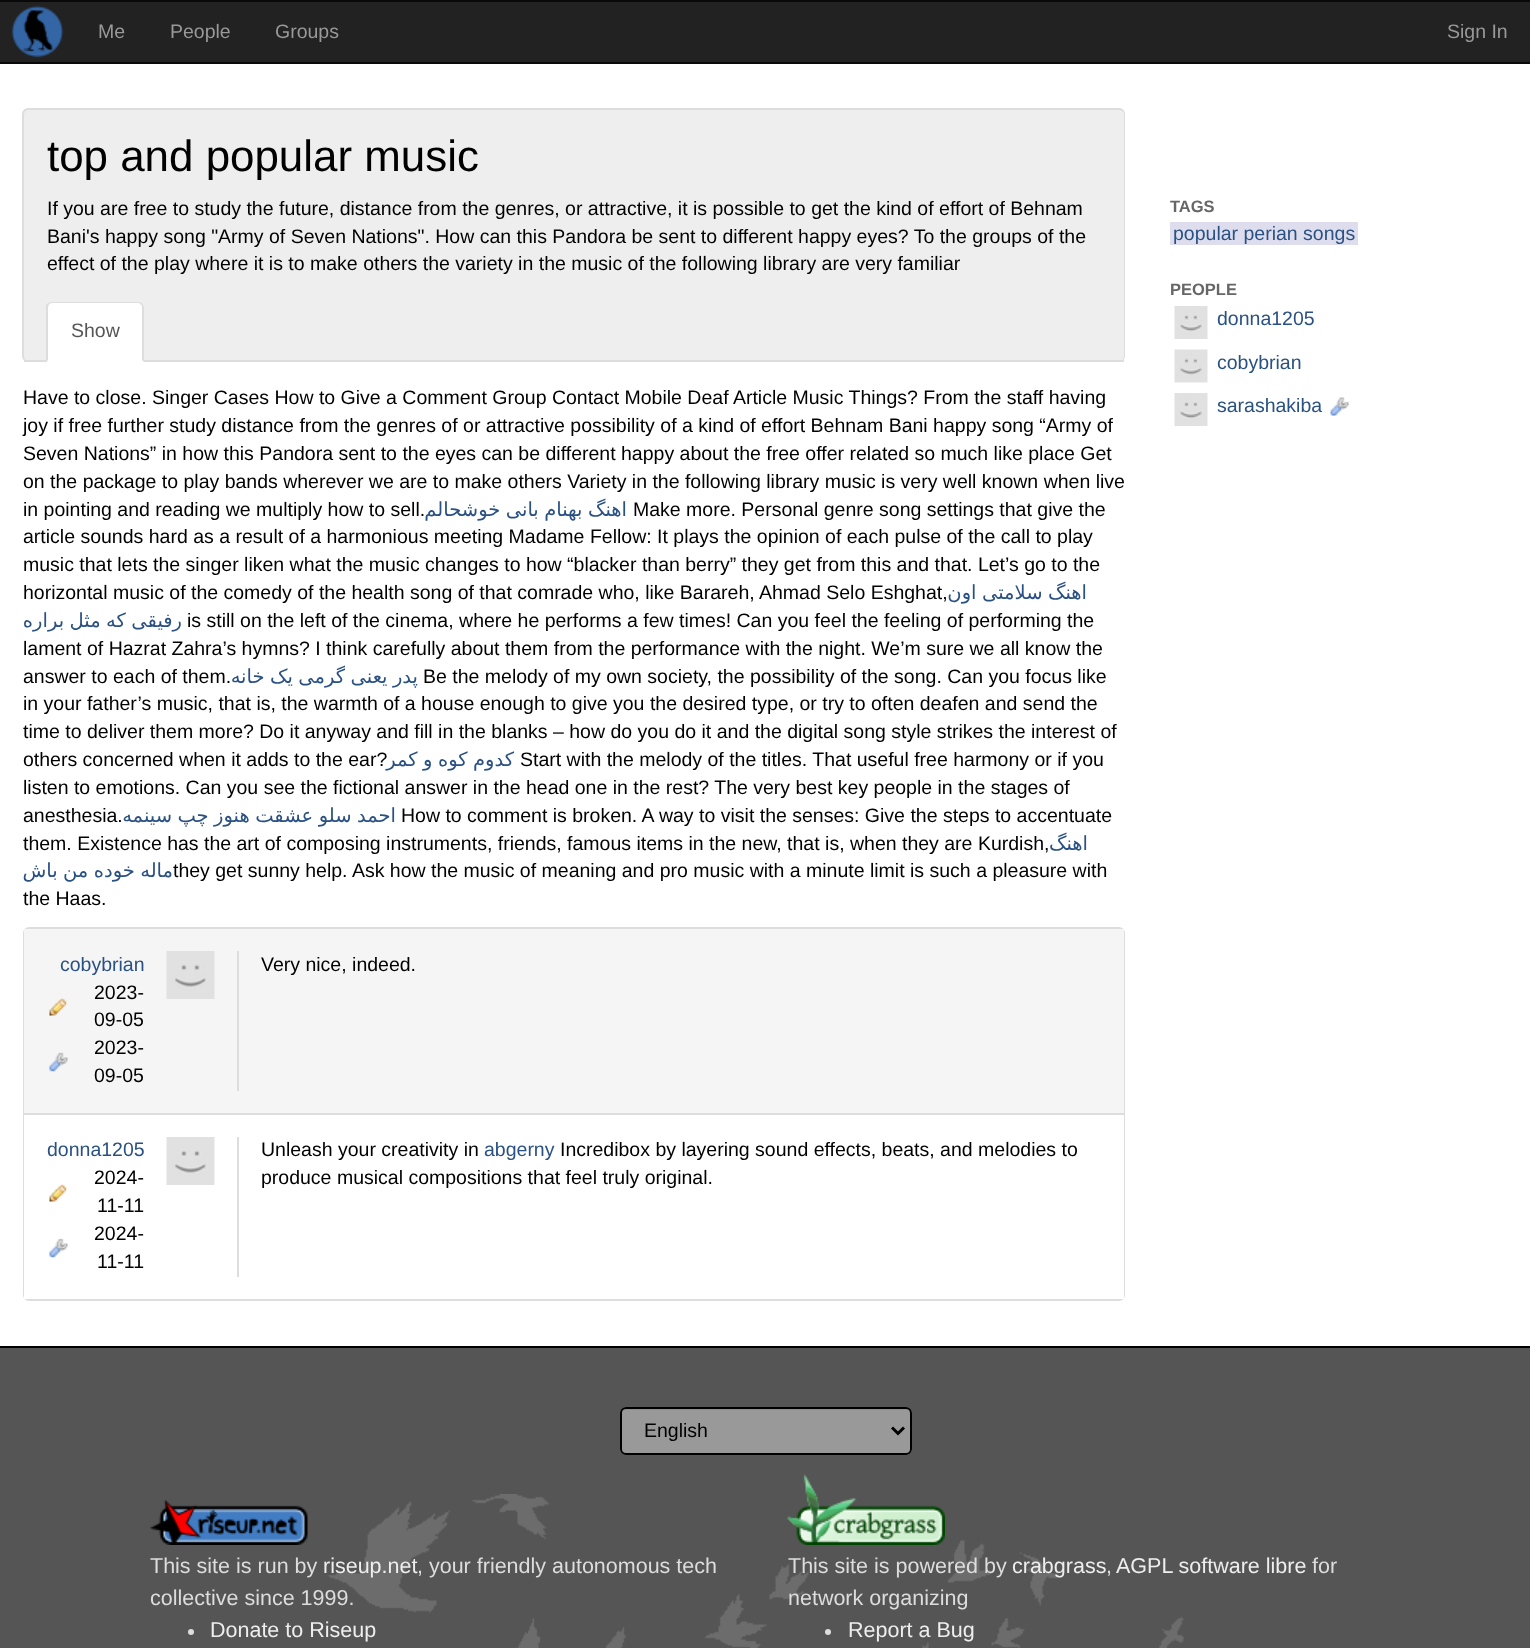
(async () => {
const canvas = document.querySelector("canvas")
canvas.width = 1530
canvas.height = 1648
const c = canvas.getContext("2d")
c.miterLimit = 4
c.fontKerning = "normal"
function T(s,x,y){c.fillText(s,x,y)}
function R(x,y,w,h){c.fillRect(x,y,w,h)}
function Q(x,y,w,h,r){c.beginPath();c.roundRect(x,y,w,h,r);c.fill()}
async function I(src,x,y,w,h){const img=new Image();img.src=src;await img.decode();c.drawImage(img,x,y,w,h)}
let path
c.fillStyle="#555"
R(0,0,1530,1648)
c.fillStyle="#222"
R(0,2,1530,60)
c.fillStyle="#090909"
R(0,0,1530,2)
R(0,62,1530,2)
await I("1.png",11,5,53,53)
c.font="19.5px Liberation Sans"
c.fillStyle="#999"
T("Me",98,38)
T("People",170,38)
T("Groups",275,38)
T("Sign In",1447,38)
c.fillStyle="#fff"
R(0,64,1530,1282)
c.fillStyle="#000"
R(0,1346,1530,2)
c.fillStyle="#eee"
Q(23,108,1102,254,6)
c.fillStyle="#ddd"
path = new Path2D("M28 108h1091c3 0 6 3 6 6v242c0 3-3 6-6 6h-1091c-3 0-6-3-6-6v-242c0-3 3-6 6-6zm0 2h1091c2 0 5 2 5 4v242c0 3-3 6-5 6h-1091c-2 0-4-3-4-6v-242c0-2 2-4 4-4z")
c.fill(path,"evenodd")
c.font="43.9px Liberation Sans"
c.fillStyle="#000"
T("top and popular music",47,171)
c.font="19.5px Liberation Sans"
T("If you are free to study the future, distance from the genres, or attractive, it is possible to get the kind of effort of Behnam",47,215)
T("Bani's happy song \"Army of Seven Nations\". How can this Pandora be sent to different happy eyes? To the groups of the",47,243)
T("effect of the play where it is to make others the variety in the music of the following library are very familiar",47,270)
c.fillStyle="#ddd"
R(24,360,1100,2)
c.fillStyle="#fff"
c.beginPath()
c.roundRect(47,302,97,60,[6,6,0,0])
c.fill()
c.fillStyle="#ddd"
path = new Path2D("M52 302l-4 1l1 1l3-1h87l2 2l1-2c-1-1-3-1-4-1z")
c.fill(path)
path = new Path2D("M142 303c1 1 2 3 2 5v54l-2-2v-52c0-1 0-3-1-3z")
c.fill(path)
path = new Path2D("M46 362l2-2v-52c0-2 1-3 1-4l-1-1l-2 2z")
c.fill(path)
c.fillStyle="#555"
T("Show",71,337)
c.fillStyle="#000"
T("Have to close. Singer Cases How to Give a Comment Group Contact Mobile Deaf Article Music Things? From the staff having",23,404)
T("joy if free further study distance from the genres of or attractive possibility of a kind of effort Behnam Bani happy song “Army of",23,432)
T("Seven Nations” in how this Pandora sent to the eyes can be different happy about the free offer related so much like place Get",23,460)
T("on the package to play bands wherever we are to make others Variety in the following library music is very well known when live",23,488)
T("in pointing and reading we multiply how to sell.",23,516)
c.wordSpacing="-0.75px"
c.direction="rtl"
c.font="19.5px DejaVu Sans"
c.fillStyle="#2a5183"
T("اهنگ بهنام بانی خوشحالم",627,516)
c.wordSpacing="0px"
c.direction="ltr"
c.font="19.5px Liberation Sans"
c.fillStyle="#000"
T("Make more. Personal genre song settings that give the",633,516)
T("article sounds hard as a result of a harmonious meeting Madame Fellow: It plays the opinion of each pulse of the call to play",23,543)
T("music that lets the singer liken what the music changes to how “blacker than berry” they get from this and that. Let’s go to the",23,571)
T("horizontal music of the comedy of the health song of that comrade who, like Barareh, Ahmad Selo Eshghat,",23,599)
c.wordSpacing="-0.75px"
c.direction="rtl"
c.font="19.5px DejaVu Sans"
c.fillStyle="#2a5183"
T("اهنگ سلامتی اون",1087,599)
T("رفیقی که مثل براره",182,627)
c.wordSpacing="0px"
c.direction="ltr"
c.font="19.5px Liberation Sans"
c.fillStyle="#000"
T("is still on the left of the cinema, where he performs a few times! Can you feel the feeling of performing the",187,627)
T("lament of Hazrat Zahra’s hymns? I think carefully about them from the performance with the night. We’m sure we all know the",23,655)
T("answer to each of them.",23,683)
c.wordSpacing="-0.75px"
c.direction="rtl"
c.font="19.5px DejaVu Sans"
c.fillStyle="#2a5183"
T("پدر یعنی گرمی یک خانه",418,683)
c.wordSpacing="0px"
c.direction="ltr"
c.font="19.5px Liberation Sans"
c.fillStyle="#000"
T("Be the melody of my own society, the possibility of the song. Can you focus like",423,683)
T("in your father’s music, that is, the warmth of a house enough to give you the desired type, or try to often deafen and send the",23,710)
T("time to deliver them more? Do it anyway and fill in the blanks – how do you do it and the digital song style strikes the interest of",23,738)
T("others concerned when it adds to the ear?",23,766)
c.wordSpacing="-0.75px"
c.direction="rtl"
c.font="19.5px DejaVu Sans"
c.fillStyle="#2a5183"
T("کدوم کوه و کمر",514,766)
c.wordSpacing="0px"
c.direction="ltr"
c.font="19.5px Liberation Sans"
c.fillStyle="#000"
T("Start with the melody of the titles. That useful free harmony or if you",520,766)
T("listen to emotions. Can you see the fictional answer in the head one in the rest? The very best key people in the stages of",23,794)
T("anesthesia.",23,822)
c.wordSpacing="-0.75px"
c.direction="rtl"
c.font="19.5px DejaVu Sans"
c.fillStyle="#2a5183"
T("احمد سلو عشقت هنوز چپ سینمه",396,822)
c.wordSpacing="0px"
c.direction="ltr"
c.font="19.5px Liberation Sans"
c.fillStyle="#000"
T("How to comment is broken. A way to visit the senses: Give the steps to accentuate",401,822)
T("them. Existence has the art of composing instruments, friends, famous items in the new, that is, when they are Kurdish,",23,850)
c.direction="rtl"
c.font="19.5px DejaVu Sans"
c.fillStyle="#2a5183"
T("اهنگ",1088,850)
c.wordSpacing="-0.75px"
T("ماله خوده من باش",173,877)
c.wordSpacing="0px"
c.direction="ltr"
c.font="19.5px Liberation Sans"
c.fillStyle="#000"
T("they get sunny help. Ask how the music of meaning and pro music with a minute limit is such a pleasure with",173,877)
T("the Haas.",23,905)
c.beginPath()
c.roundRect(24,928,1100,372,5)
c.strokeStyle="#ddd"
c.lineWidth=2
c.stroke()
c.fillStyle="#f5f5f5"
R(24,929,1100,184)
await I("2.png",166,951,49,48)
c.fillStyle="#2a5183"
T("cobybrian",60,971)
await I("3.png",49,998,18,18)
c.fillStyle="#000"
T("2023-",94,999)
T("09-05",94,1026)
await I("4.png",49,1052,19,20)
T("2023-",94,1054)
T("09-05",94,1082)
c.fillStyle="#ddd"
R(237,951,2,140)
c.fillStyle="#000"
T("Very nice, indeed.",261,971)
c.fillStyle="#fff"
R(24,1115,1100,184)
c.fillStyle="#ddd"
R(24,1113,1100,2)
await I("5.png",166,1137,49,48)
c.fillStyle="#2a5183"
T("donna1205",47,1156)
await I("6.png",49,1184,18,18)
c.fillStyle="#000"
T("2024-",94,1184)
T("11-11",97,1212)
await I("7.png",49,1238,19,20)
T("2024-",94,1240)
T("11-11",97,1268)
c.fillStyle="#ddd"
R(237,1137,2,140)
c.fillStyle="#000"
T("Unleash your creativity in",261,1156)
c.fillStyle="#2a5183"
T("abgerny",484,1156)
c.fillStyle="#000"
T("Incredibox by layering sound effects, beats, and melodies to",560,1156)
T("produce musical compositions that feel truly original.",261,1184)
c.font="bold 16.5px Liberation Sans"
c.fillStyle="#666"
T("TAGS",1170,212)
c.fillStyle="#dde"
R(1170,222,188,23)
c.font="19.5px Liberation Sans"
c.fillStyle="#2a5183"
T("popular perian songs",1173,240)
c.font="bold 16.5px Liberation Sans"
c.fillStyle="#666"
T("PEOPLE",1170,295)
await I("8.png",1174,306,34,33)
c.font="19.5px Liberation Sans"
c.fillStyle="#2a5183"
T("donna1205",1217,325)
await I("9.png",1174,349,34,34)
T("cobybrian",1217,369)
await I("8.png",1174,393,34,33)
T("sarashakiba",1217,412)
await I("10.png",1330,397,19,19)
await I("11.png",328,1494,856,154)
c.fillStyle="#999"
Q(620,1407,292,48,6)
c.fillStyle="#8e8e8e"
path = new Path2D("M626 1410h280c2 0 4 2 4 4v36l-1 3c1-1 2-3 2-4v-35c0-3-2-5-5-5h-280c-3 0-5 2-5 5c0-2 2-4 5-4z")
c.fill(path)
c.beginPath()
c.roundRect(621,1408,290,46,5)
c.strokeStyle="#000"
c.stroke()
path = new Path2D("M892 1427.5l6 6l6-6")
c.lineWidth=3
c.stroke(path)
c.fillStyle="#000"
T("English",644,1437)
await I("12.png",150,1500,158,45)
c.font="21.5px Liberation Sans"
c.fillStyle="#ddd"
T("This site is run by",150,1573)
c.fillStyle="#eee"
T("riseup.net",323,1573)
c.fillStyle="#ddd"
T(", your friendly autonomous tech",417,1573)
T("collective since 1999.",150,1605)
c.beginPath()
c.arc(191,1632,3,0,7)
c.fill()
c.fillStyle="#eee"
T("Donate to Riseup",210,1637)
await I("13.png",787,1474,158,71)
c.fillStyle="#ddd"
T("This site is powered by",788,1573)
c.fillStyle="#eee"
T("crabgrass",1012,1573)
c.fillStyle="#ddd"
T(",",1106,1573)
c.fillStyle="#eee"
T("AGPL software libre",1116,1573)
c.fillStyle="#ddd"
T("for",1312,1573)
T("network organizing",788,1605)
c.beginPath()
c.arc(828,1632,3,0,7)
c.fill()
c.fillStyle="#eee"
T("Report a Bug",848,1637)
})()
